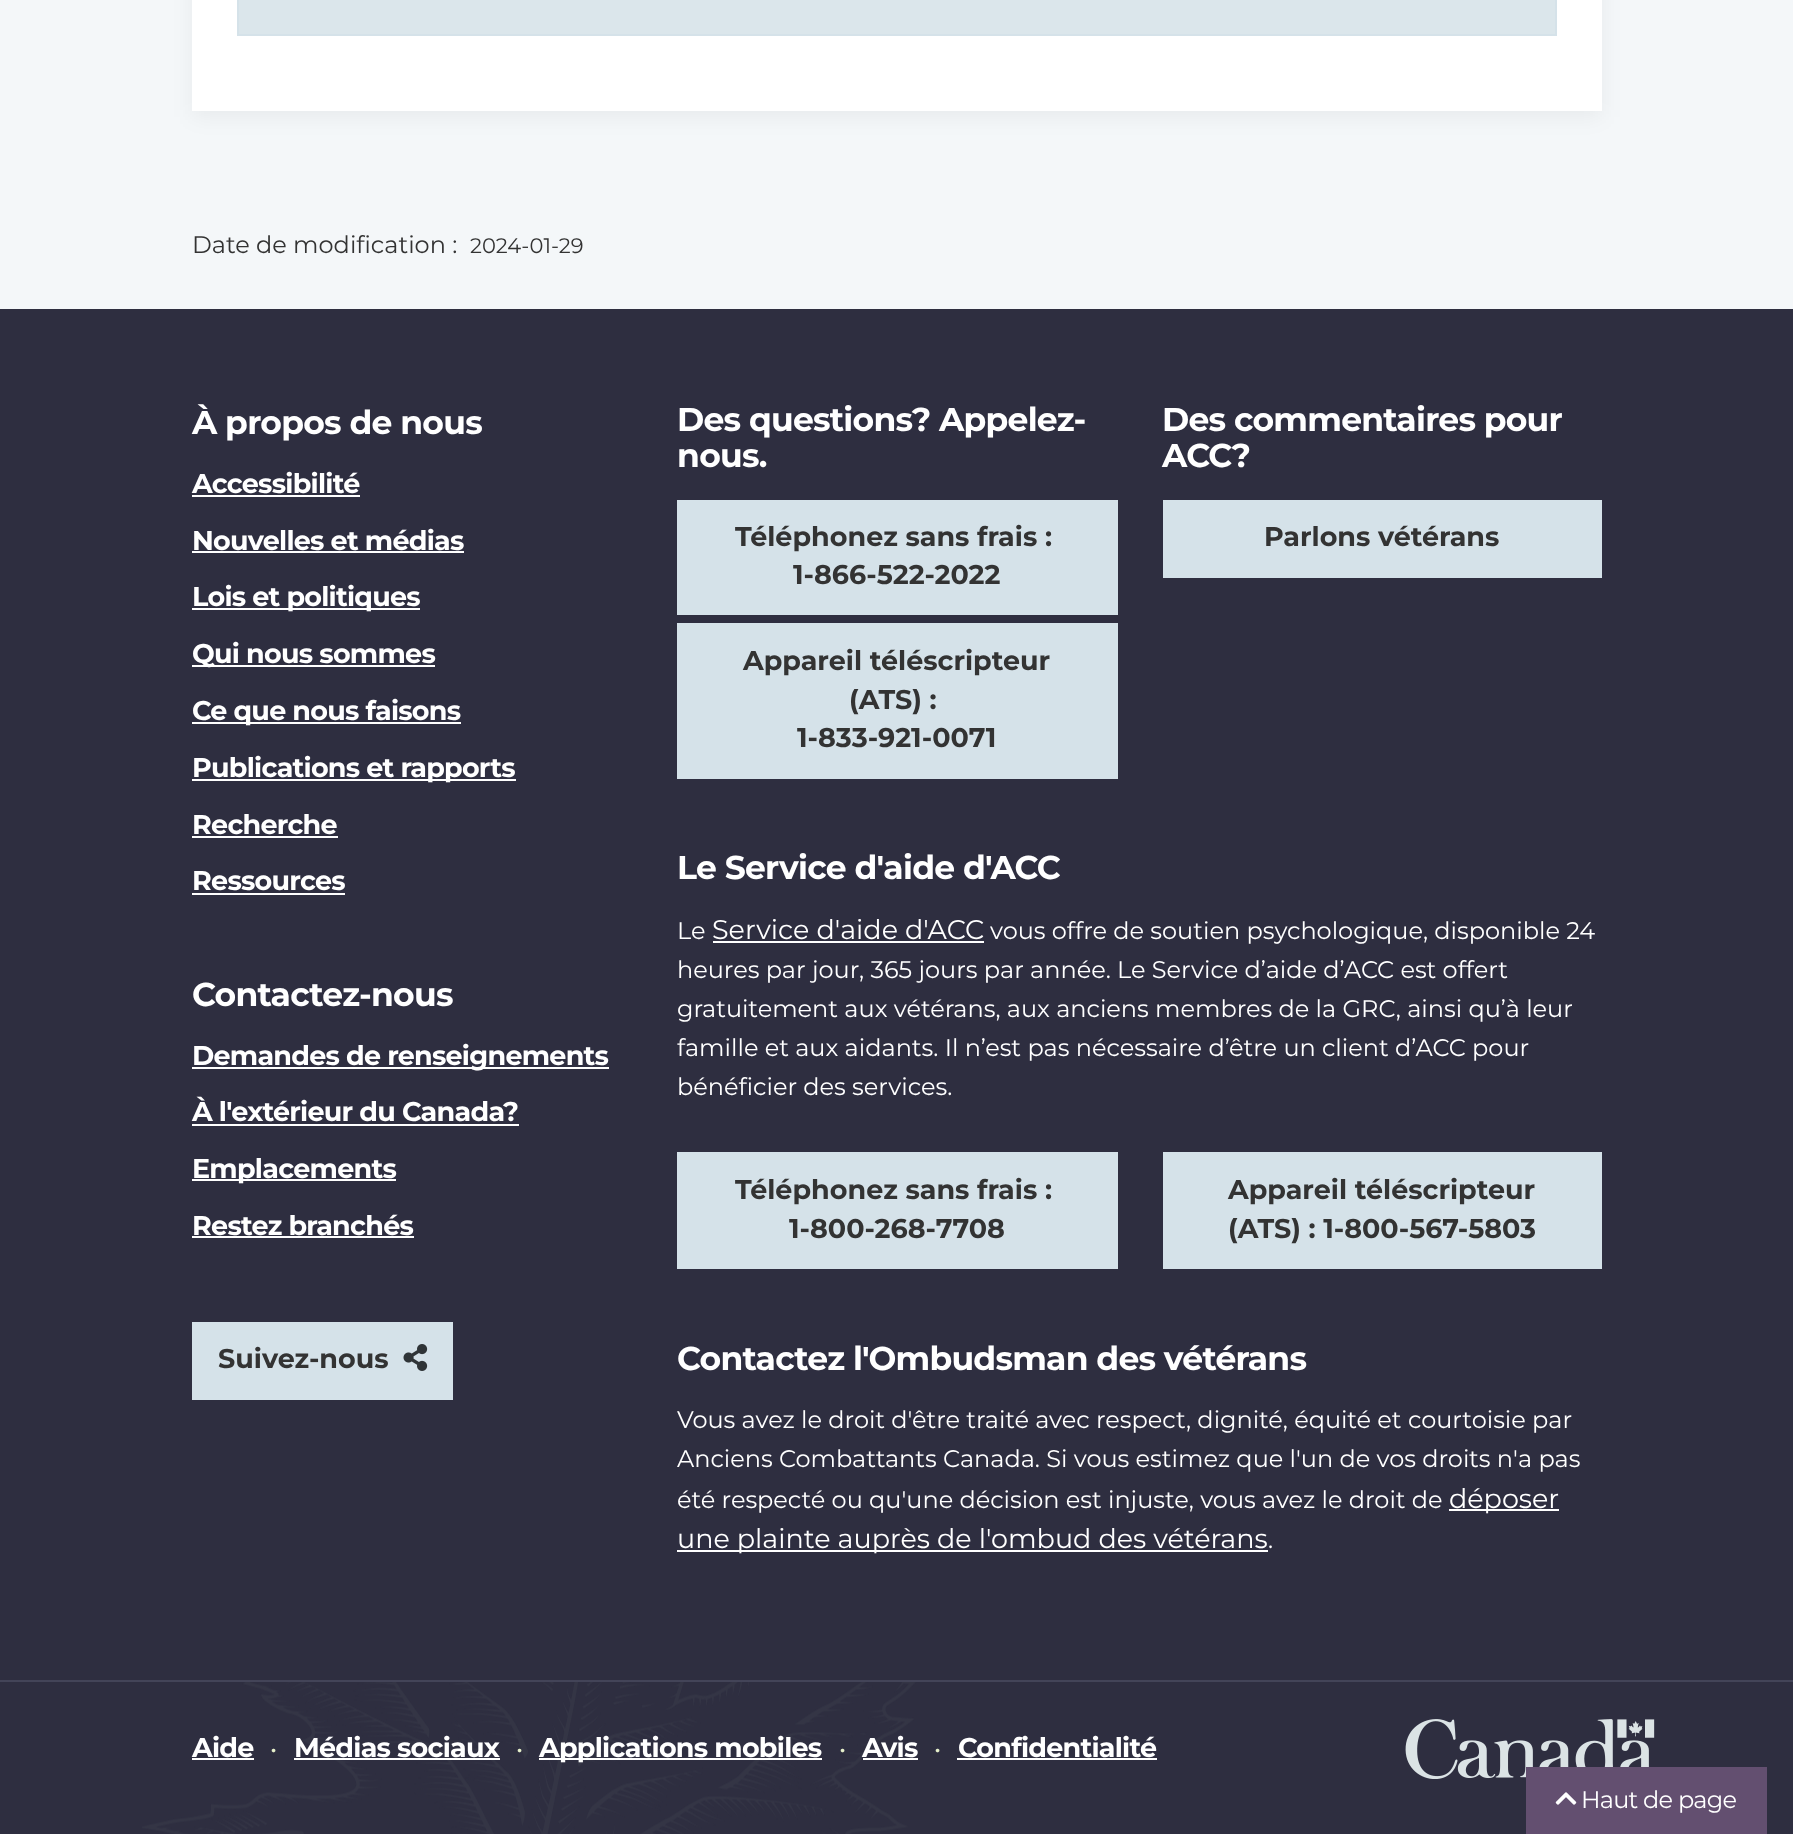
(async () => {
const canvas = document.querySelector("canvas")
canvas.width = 1793
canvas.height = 1834
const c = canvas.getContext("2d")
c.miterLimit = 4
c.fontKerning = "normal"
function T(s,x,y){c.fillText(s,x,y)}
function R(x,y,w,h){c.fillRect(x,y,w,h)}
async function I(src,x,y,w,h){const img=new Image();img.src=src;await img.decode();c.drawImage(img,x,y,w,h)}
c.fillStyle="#f4f7f9"
R(0,0,1793,1834)
c.fillStyle="#0000000d"
c.filter="blur(10.5px)"
c.beginPath()
c.rect(192,-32,1410,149)
c.fill()
c.filter="none"
c.fillStyle="#fff"
R(192,0,1410,111)
c.fillStyle="#dbe6eb"
c.beginPath()
c.rect(238,-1,1318,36)
c.fill()
c.strokeStyle="#d5e2e9"
c.lineWidth=2
c.stroke()
c.font="24px Montserrat"
c.fillStyle="#333"
T("Date de modification :",192,253)
c.font="21px Montserrat"
T("2024-01-29",470,253)
c.fillStyle="#2e2e40"
R(0,309,1793,1525)
c.letterSpacing="-0.75px"
c.font="bold 33px Montserrat"
c.fillStyle="#fff"
T("À propos de nous",192,434)
c.font="bold 27px Montserrat"
T("Accessibilité",192,493)
R(192,495,168,2)
T("Nouvelles et médias",192,550)
R(192,551,272,2)
R(192,608,228,2)
T("Lois et politiques",192,606)
R(192,665,243,2)
T("Qui nous sommes",192,663)
R(192,722,269,2)
T("Ce que nous faisons",192,720)
R(192,779,324,2)
T("Publications et rapports",192,777)
T("Recherche",192,834)
R(192,836,146,2)
T("Ressources",192,890)
R(192,893,153,2)
c.font="bold 33px Montserrat"
T("Contactez-nous",192,1006)
R(192,1067,417,2)
c.font="bold 27px Montserrat"
T("Demandes de renseignements",192,1065)
T("À l'extérieur du Canada?",192,1121)
R(192,1124,327,2)
R(192,1179,204,2)
T("Emplacements",192,1178)
T("Restez branchés",192,1235)
R(192,1236,222,2)
c.fillStyle="#d5e2e9"
R(192,1322,261,78)
c.letterSpacing="0px"
c.fillStyle="#333"
T("Suivez-nous",218,1368)
await I("1.png",403,1344,25,27)
await I("4.png",1405,1719,250,60)
c.fillStyle="#634f70"
R(1526,1767,241,67)
await I("2.png",1555,1792,22,13)
c.letterSpacing="-0.75px"
c.font="24px Montserrat"
c.fillStyle="#fff"
T("Haut de page",1581,1808)
c.font="bold 33px Montserrat"
T("Des questions? Appelez-",677,431)
T("nous.",677,467)
c.fillStyle="#d5e2e9"
R(677,500,441,115)
c.letterSpacing="0px"
c.font="bold 27px Montserrat"
c.fillStyle="#333"
T("Téléphonez sans frais :",735,546)
T("1-866-522-2022",793,584)
c.fillStyle="#d5e2e9"
R(677,623,441,156)
c.fillStyle="#333"
T("Appareil téléscripteur",743,670)
T("(ATS) :",849,709)
T("1-833-921-0071",797,747)
c.letterSpacing="-0.75px"
c.font="bold 33px Montserrat"
c.fillStyle="#fff"
T("Des commentaires pour",1162,431)
T("ACC?",1162,467)
c.fillStyle="#d5e2e9"
R(1163,500,439,78)
c.letterSpacing="0px"
c.font="bold 27px Montserrat"
c.fillStyle="#333"
T("Parlons vétérans",1264,546)
c.letterSpacing="-0.75px"
c.font="bold 33px Montserrat"
c.fillStyle="#fff"
T("Le Service d'aide d'ACC",677,879)
c.letterSpacing="0px"
c.font="24px Montserrat"
T("Le",677,939)
c.font="27px Montserrat"
T("Service d'aide d'ACC",712,939)
R(713,941,271,2)
c.font="24px Montserrat"
T("vous offre de soutien psychologique, disponible 24",990,939)
T("heures par jour, 365 jours par année. Le Service d’aide d’ACC est offert",677,978)
T("gratuitement aux vétérans, aux anciens membres de la GRC, ainsi qu’à leur",677,1017)
T("famille et aux aidants. Il n’est pas nécessaire d’être un client d’ACC pour",677,1056)
T("bénéficier des services.",677,1095)
c.fillStyle="#d5e2e9"
R(677,1152,441,117)
c.font="bold 27px Montserrat"
c.fillStyle="#333"
T("Téléphonez sans frais :",735,1199)
T("1-800-268-7708",789,1238)
c.fillStyle="#d5e2e9"
R(1163,1152,439,117)
c.fillStyle="#333"
T("Appareil téléscripteur",1228,1199)
T("(ATS) : 1-800-567-5803",1228,1238)
c.letterSpacing="-0.75px"
c.font="bold 33px Montserrat"
c.fillStyle="#fff"
T("Contactez l'Ombudsman des vétérans",677,1370)
c.letterSpacing="0px"
c.font="24px Montserrat"
T("Vous avez le droit d'être traité avec respect, dignité, équité et courtoisie par",677,1428)
T("Anciens Combattants Canada. Si vous estimez que l'un de vos droits n'a pas",677,1467)
T("été respecté ou qu'une décision est injuste, vous avez le droit de",677,1508)
R(1449,1509,110,2)
c.font="27px Montserrat"
T("déposer",1449,1508)
R(677,1550,591,2)
T("une plainte auprès de l'ombud des vétérans",677,1548)
c.font="24px Montserrat"
T(".",1268,1548)
await I("3.png",142,1682,774,152)
c.fillStyle="#434458"
R(0,1680,1793,2)
c.letterSpacing="-0.75px"
c.font="bold 27px Montserrat"
c.fillStyle="#fff"
T("Aide",192,1757)
R(192,1758,62,2)
c.font="24px Montserrat"
c.fillStyle="#e6f0cb"
T("•",270,1757)
c.font="bold 27px Montserrat"
c.fillStyle="#fff"
T("Médias sociaux",294,1757)
R(294,1758,206,2)
c.font="24px Montserrat"
c.fillStyle="#e6f0cb"
T("•",516,1757)
c.fillStyle="#fff"
R(539,1758,283,2)
c.font="bold 27px Montserrat"
T("Applications mobiles",539,1757)
c.font="24px Montserrat"
c.fillStyle="#e6f0cb"
T("•",839,1757)
c.font="bold 27px Montserrat"
c.fillStyle="#fff"
T("Avis",862,1757)
R(863,1758,55,2)
c.font="24px Montserrat"
c.fillStyle="#e6f0cb"
T("•",934,1757)
c.font="bold 27px Montserrat"
c.fillStyle="#fff"
T("Confidentialité",958,1757)
R(957,1758,200,2)
})()
